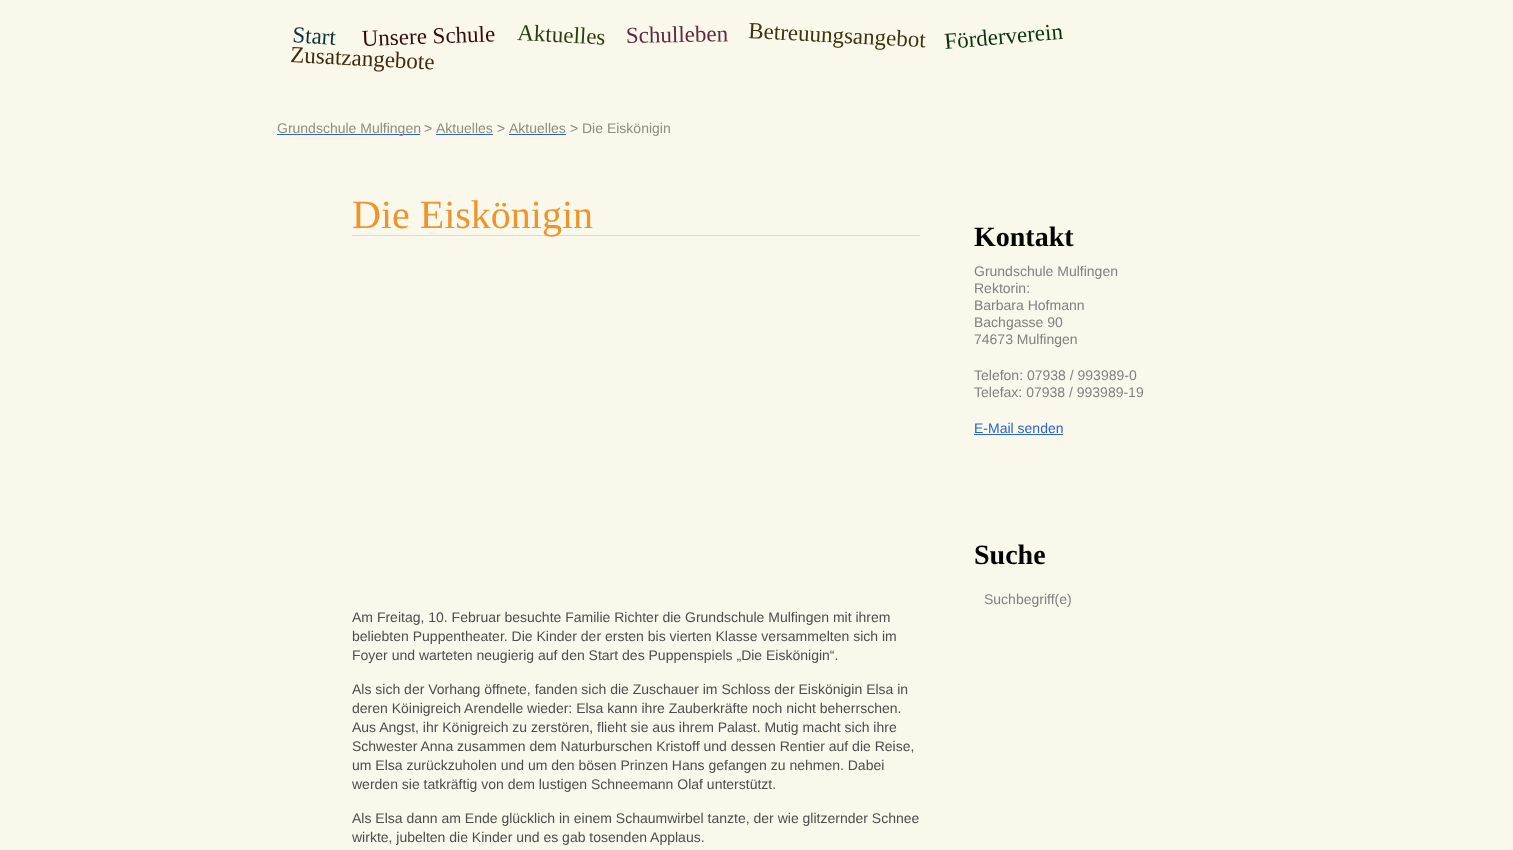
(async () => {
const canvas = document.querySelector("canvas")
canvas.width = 1513
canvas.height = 850
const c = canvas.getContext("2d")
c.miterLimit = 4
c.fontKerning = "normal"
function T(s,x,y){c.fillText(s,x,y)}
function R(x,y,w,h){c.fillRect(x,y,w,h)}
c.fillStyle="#faf8eb"
R(0,0,1513,850)
c.font="23px Liberation Serif"
c.fillStyle="#0e343e"
c.save()
c.translate(292,42)
c.rotate(4 * Math.PI / 180)
c.fillText("Start",0,0)
c.restore()
c.fillStyle="#340b0e"
c.save()
c.translate(362,46)
c.rotate(-2 * Math.PI / 180)
c.fillText("Unsere Schule",0,0)
c.restore()
c.fillStyle="#2b3e11"
c.save()
c.translate(517,40)
c.rotate(3 * Math.PI / 180)
c.fillText("Aktuelles",0,0)
c.restore()
c.fillStyle="#5e2942"
c.save()
c.translate(626,43)
c.rotate(-1 * Math.PI / 180)
c.fillText("Schulleben",0,0)
c.restore()
c.fillStyle="#3c350e"
c.save()
c.translate(748,38)
c.rotate(3 * Math.PI / 180)
c.fillText("Betreuungsangebot",0,0)
c.restore()
c.fillStyle="#09340a"
c.save()
c.translate(945,49)
c.rotate(-5 * Math.PI / 180)
c.fillText("Förderverein",0,0)
c.restore()
c.fillStyle="#412a0f"
c.save()
c.translate(290,62)
c.rotate(3 * Math.PI / 180)
c.fillText("Zusatzangebote",0,0)
c.restore()
c.fillStyle="#2964d1"
R(277,134,143,1)
c.font="14px Liberation Sans"
c.fillStyle="#8f8d82"
T("Grundschule Mulfingen",277,133)
c.fillStyle="#818181"
T(">",424,133)
c.fillStyle="#8f8d82"
T("Aktuelles",436,133)
c.fillStyle="#2964d1"
R(436,134,57,1)
c.fillStyle="#818181"
T(">",497,133)
c.fillStyle="#8f8d82"
T("Aktuelles",509,133)
c.fillStyle="#2964d1"
R(509,134,57,1)
c.fillStyle="#818181"
T(">",570,133)
c.fillStyle="#8f8d82"
T("Die Eiskönigin",582,133)
c.fillStyle="#f7d5ab"
R(352,235,568,1)
c.font="40px Liberation Serif"
c.fillStyle="#ec952c"
T("Die Eiskönigin",352,228)
c.font="14px Liberation Sans"
c.fillStyle="#4d4d4d"
T("Am Freitag, 10. Februar besuchte Familie Richter die Grundschule Mulfingen mit ihrem",352,622)
T("beliebten Puppentheater. Die Kinder der ersten bis vierten Klasse versammelten sich im",352,641)
T("Foyer und warteten neugierig auf den Start des Puppenspiels „Die Eiskönigin“.",352,660)
T("Als sich der Vorhang öffnete, fanden sich die Zuschauer im Schloss der Eiskönigin Elsa in",352,694)
T("deren Köinigreich Arendelle wieder: Elsa kann ihre Zauberkräfte noch nicht beherrschen.",352,713)
T("Aus Angst, ihr Königreich zu zerstören, flieht sie aus ihrem Palast. Mutig macht sich ihre",352,732)
T("Schwester Anna zusammen dem Naturburschen Kristoff und dessen Rentier auf die Reise,",352,751)
T("um Elsa zurückzuholen und um den bösen Prinzen Hans gefangen zu nehmen. Dabei",352,770)
T("werden sie tatkräftig von dem lustigen Schneemann Olaf unterstützt.",352,789)
T("Als Elsa dann am Ende glücklich in einem Schaumwirbel tanzte, der wie glitzernder Schnee",352,823)
T("wirkte, jubelten die Kinder und es gab tosenden Applaus.",352,842)
c.font="bold 28px Liberation Serif"
c.fillStyle="#000"
T("Kontakt",974,246)
c.font="14px Liberation Sans"
c.fillStyle="#818181"
T("Grundschule Mulfingen",974,276)
T("Rektorin:",974,293)
T("Barbara Hofmann",974,310)
T("Bachgasse 90",974,327)
T("74673 Mulfingen",974,344)
T("Telefon: 07938 / 993989-0",974,380)
T("Telefax: 07938 / 993989-19",974,397)
c.fillStyle="#2964d1"
T("E-Mail senden",974,433)
R(974,434,89,1)
c.font="bold 28px Liberation Serif"
c.fillStyle="#000"
T("Suche",974,564)
c.font="14px Liberation Sans"
c.fillStyle="#818181"
T("Suchbegriff(e)",984,604)
})()
